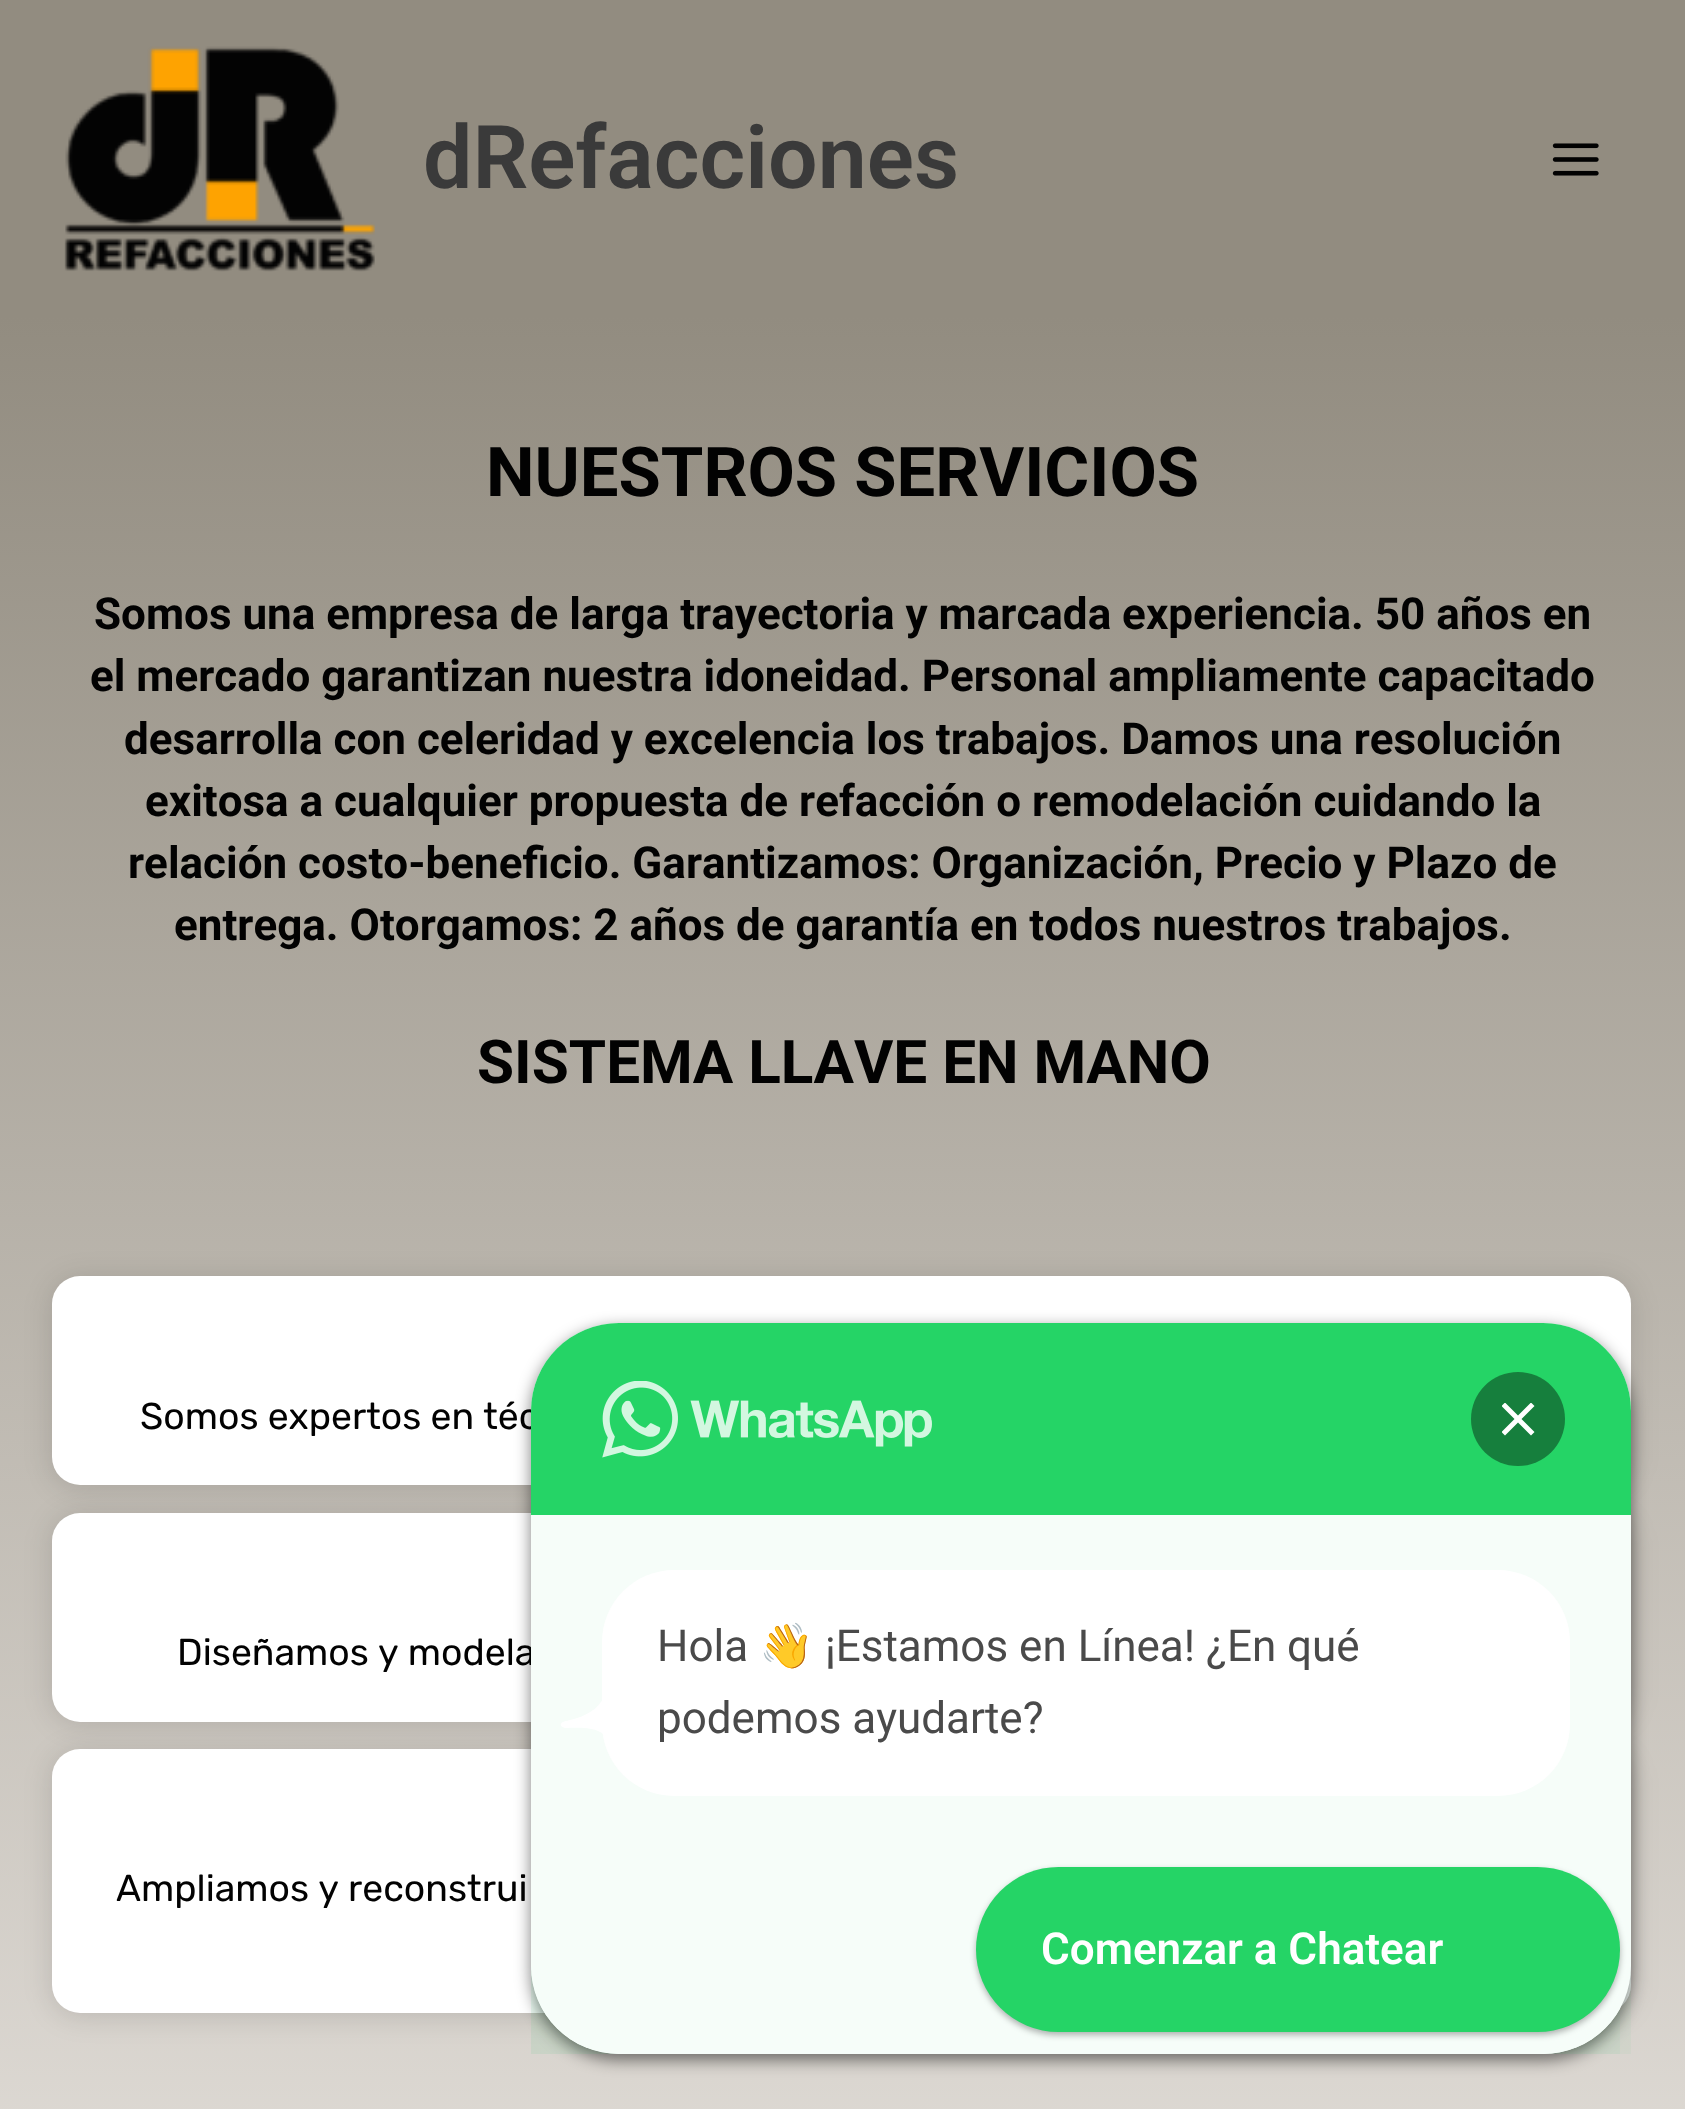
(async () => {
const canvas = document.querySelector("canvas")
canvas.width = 1685
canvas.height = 2109
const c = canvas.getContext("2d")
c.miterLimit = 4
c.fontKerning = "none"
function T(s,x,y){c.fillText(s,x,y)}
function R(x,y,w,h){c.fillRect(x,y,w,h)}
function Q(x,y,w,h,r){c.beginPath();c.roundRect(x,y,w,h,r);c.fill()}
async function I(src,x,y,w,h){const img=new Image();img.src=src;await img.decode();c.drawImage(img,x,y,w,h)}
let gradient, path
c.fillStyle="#fff"
R(0,0,1685,2109)
c.fillStyle="#928c80"
R(0,0,1685,316)
await I("1.png",64,46,311,226)
c.font="600 87.75px Roboto"
c.fillStyle="#3a3a3a"
T("dRefacciones",423,188)
await I("2.png",1552,143,47,33)
gradient = c.createLinearGradient(843,316,843,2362)
gradient.addColorStop(0,"#928c80")
gradient.addColorStop(.99,"#e5e1dc")
c.fillStyle = gradient
R(0,316,1685,1793)
c.font="bold 68.75px Roboto"
c.fillStyle="#020202"
T("NUESTROS SERVICIOS",486,496)
c.font="bold 44px Roboto"
T("Somos una empresa de larga trayectoria y marcada experiencia. 50 años en",94,629)
T("el mercado garantizan nuestra idoneidad. Personal ampliamente capacitado",90,691)
T("desarrolla con celeridad y excelencia los trabajos. Damos una resolución",124,754)
T("exitosa a cualquier propuesta de refacción o remodelación cuidando la",145,816)
T("relación costo-beneficio. Garantizamos: Organización, Precio y Plazo de",128,878)
T("entrega. Otorgamos: 2 años de garantía en todos nuestros trabajos.",174,940)
c.font="bold 60.25px Roboto"
T("SISTEMA LLAVE EN MANO",477,1083)
c.fillStyle="#00000021"
c.filter="blur(14px)"
c.beginPath()
c.roundRect(52,1279,1579,209,28)
c.fill()
c.filter="none"
c.fillStyle="#fff"
Q(52,1276,1579,209,28)
c.font="37.4px Rubik"
c.fillStyle="#020202"
T("Somos expertos en téc",140,1429)
c.fillStyle="#00000021"
c.filter="blur(14px)"
c.beginPath()
c.roundRect(52,1515,1579,209,28)
c.fill()
c.filter="none"
c.fillStyle="#fff"
Q(52,1513,1579,209,28)
c.fillStyle="#020202"
T("Diseñamos y modela",177,1665)
c.fillStyle="#00000021"
c.filter="blur(14px)"
c.beginPath()
c.roundRect(52,1752,1579,264,28)
c.fill()
c.filter="none"
c.fillStyle="#fff"
Q(52,1749,1579,264,28)
c.fillStyle="#020202"
T("Ampliamos y reconstrui",116,1901)
c.fillStyle="#00000080"
c.filter="blur(8px)"
c.beginPath()
c.roundRect(531,1328,1100,732,88)
c.fill()
c.filter="none"
c.fillStyle="#fff"
Q(531,1323,1100,731,88)
c.fillStyle="#25d466"
c.beginPath()
c.roundRect(531,1323,1100,192,[88,88,0,0])
c.fill()
c.fillStyle="#25d4660a"
R(531,1515,1100,539)
await I("3.png",602,1381,330,77)
c.fillStyle="#167f3d"
c.beginPath()
c.arc(1518,1419,47,0,7)
c.fill()
c.save()
c.beginPath()
c.rect(1502,1403,33,33)
c.clip()
c.fillStyle="#fff"
path = new Path2D("M1534.5 1406l-3.5-3.5l-13 13l-13-13l-3.5 3.5l13 13l-13 13l3.5 3.5l13-13l13 13l3.5-3.5l-13-13z")
c.fill(path)
c.restore()
c.fillStyle="#fff"
Q(602,1570,968,226,72)
c.font="44px Roboto"
c.fillStyle="#4a4a4a"
T("Hola",657,1661)
c.font="44px Noto Color Emoji"
T("👋",759,1661)
c.font="44px Roboto"
T("¡Estamos en Línea! ¿En qué",825,1661)
c.fillStyle="#fff"
path = new Path2D("M608 1678v68c0-21-29-18-43-18c-2-1-3-1-4-2c-2-5 7-5 9-6c22-5 38-17 38-42z")
c.fill(path)
c.fillStyle="#4a4a4a"
T("podemos ayudarte?",657,1733)
c.save()
c.beginPath()
c.roundRect(531,1323,1100,731,88)
c.clip()
c.fillStyle="#fff"
c.beginPath()
c.roundRect(531,1834,1089,220,[0,0,0,88])
c.fill()
c.restore()
c.fillStyle="#25d4660a"
R(531,1834,1089,220)
c.fillStyle="#0000004d"
c.filter="blur(3px)"
c.beginPath()
c.roundRect(976,1870,644,165,82.5)
c.fill()
c.filter="none"
c.fillStyle="#25d466"
Q(976,1867,644,165,82.5)
c.font="600 44px Roboto"
c.fillStyle="#fff"
T("Comenzar a Chatear",1041,1964)
})()
